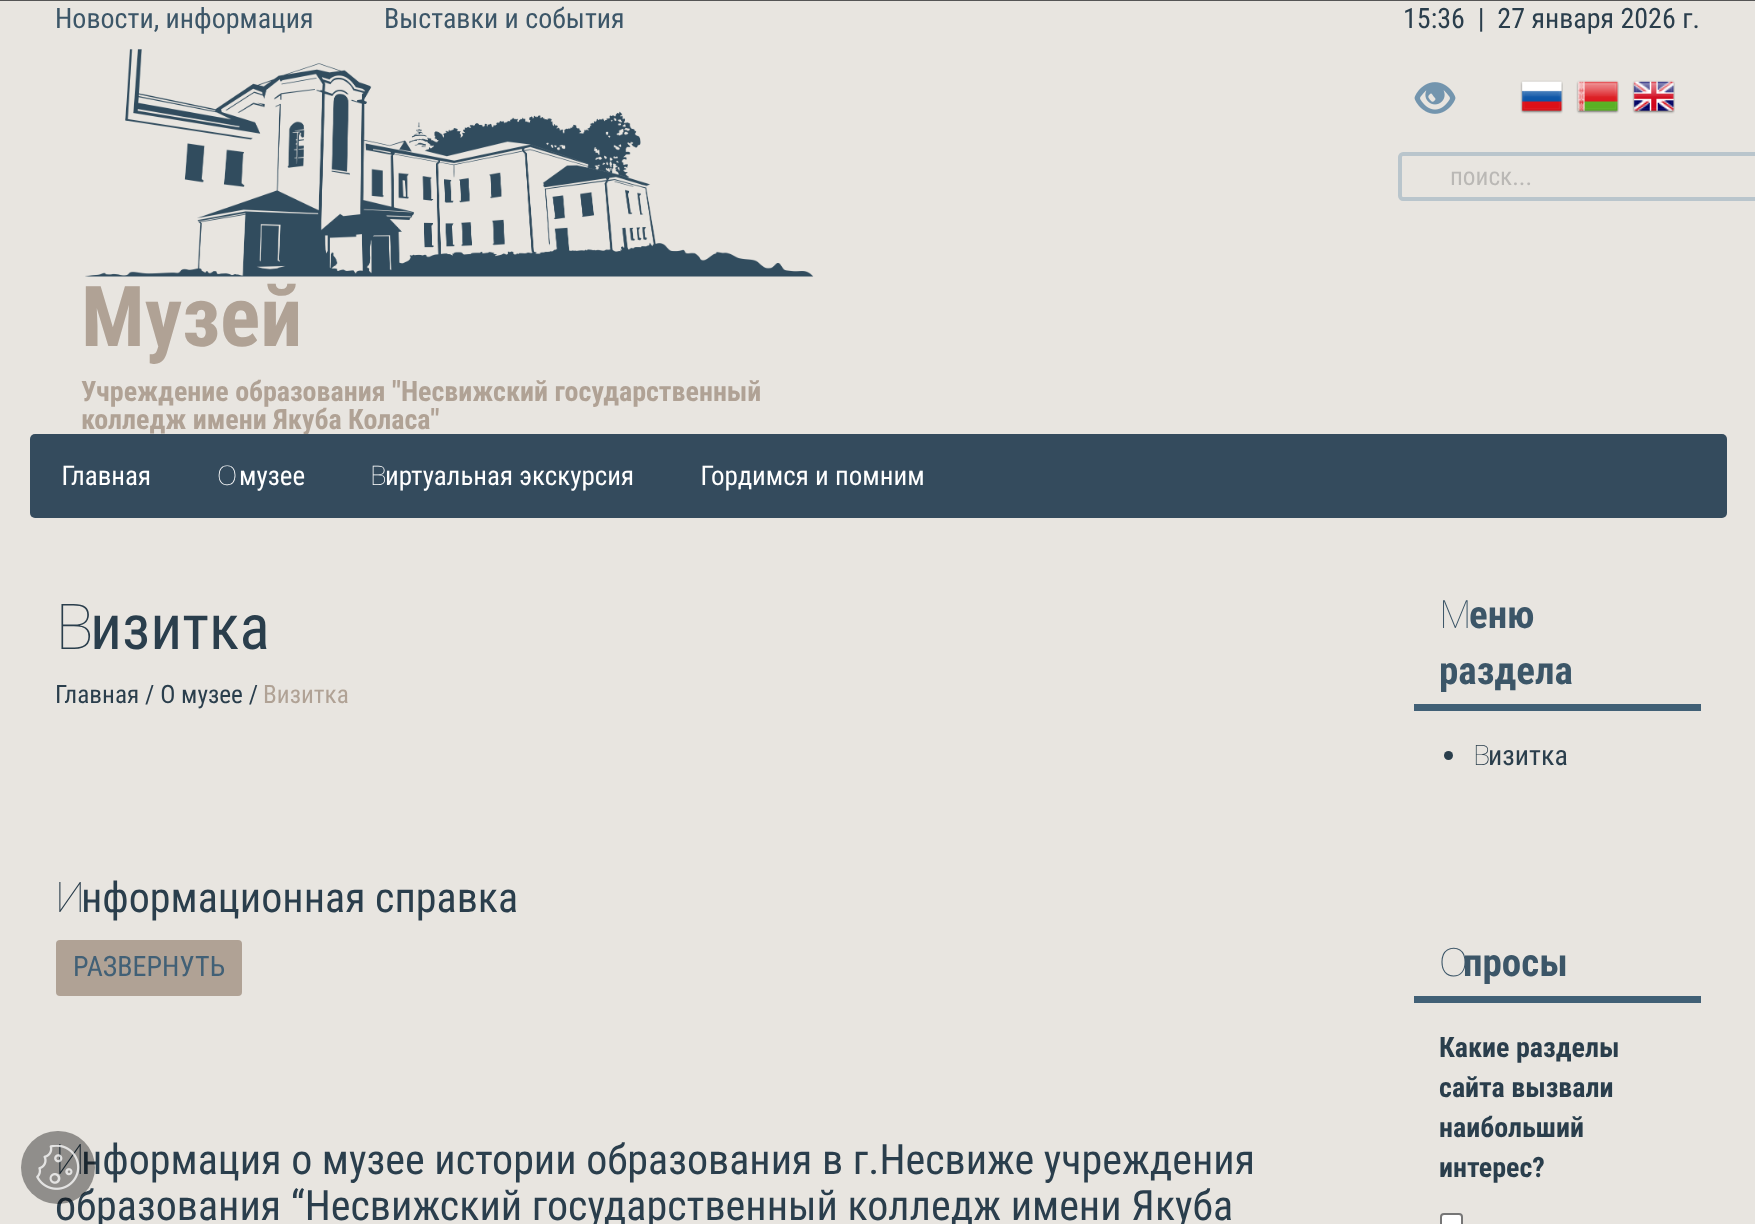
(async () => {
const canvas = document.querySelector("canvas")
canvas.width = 1755
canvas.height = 1224
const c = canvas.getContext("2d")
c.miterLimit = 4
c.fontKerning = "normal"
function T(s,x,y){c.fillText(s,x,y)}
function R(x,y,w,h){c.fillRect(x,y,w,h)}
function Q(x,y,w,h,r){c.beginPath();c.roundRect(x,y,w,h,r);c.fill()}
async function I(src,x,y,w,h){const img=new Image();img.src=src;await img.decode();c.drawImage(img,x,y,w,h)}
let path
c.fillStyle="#e8e5e0"
R(0,0,1755,1224)
c.fillStyle="#555"
R(0,0,1755,1)
c.font="28px Roboto Condensed"
c.fillStyle="#3c5668"
T("Новости, информация",55,28)
T("Выставки и события",384,28)
c.fillStyle="#2a3e4c"
T("15:36  |  27 января 2026 г.",1403,28)
await I("1.png",1414,82,42,32)
await I("2.png",1520,80,43,34)
await I("3.png",1576,80,43,34)
await I("4.png",1632,80,43,34)
path = new Path2D("M1403 154h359v45h-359c-1.5 0-3-1.5-3-3v-39c0-1.5 1.5-3 3-3z")
c.strokeStyle="#b9c5cc"
c.lineWidth=4
c.stroke(path)
c.font="25.25px Roboto Condensed"
c.fillStyle="#bab8b5"
T("поиск...",1450,185)
await I("5.png",85,49,729,228)
c.font="bold 84px Roboto Condensed"
c.fillStyle="#b0a295"
T("Музей",81,346)
c.font="bold 28px Roboto Condensed"
T("Учреждение образования \"Несвижский государственный",81,401)
c.save()
c.beginPath()
c.rect(82,49,1264,385)
c.clip()
T("колледж имени Якуба Коласа\"",81,429)
c.restore()
c.fillStyle="#344b5d"
Q(30,434,1697,84,5)
c.font="27px Noto Sans"
c.fillStyle="#fff"
T("Г",61,485)
c.font="27px Roboto Condensed"
T("лавная",71,485)
c.font="100 27px Noto Sans"
T("О",217,485)
c.font="27px Roboto Condensed"
T("музее",239,485)
c.font="100 27px Noto Sans"
T("В",370,485)
c.font="27px Roboto Condensed"
T("иртуальная экскурсия",385,485)
c.font="27px Noto Sans"
T("Г",700,485)
c.font="27px Roboto Condensed"
T("ордимся и помним",711,485)
c.font="100 63px Noto Sans"
c.fillStyle="#2a3e4c"
T("В",55,649)
c.font="63px Roboto Condensed"
T("изитка",90,649)
c.font="25.25px Roboto Condensed"
T("Главная / О музее /",55,703)
c.fillStyle="#b0a295"
T("Визитка",263,703)
c.font="100 42px Noto Sans"
c.fillStyle="#2a3e4c"
T("И",55,912)
c.font="42px Roboto Condensed"
T("нформационная справка",81,912)
c.fillStyle="#b0a295"
Q(56,940,186,56,4)
c.font="28px Roboto Condensed"
c.fillStyle="#416076"
T("РАЗВЕРНУТЬ",73,976)
c.font="100 42px Noto Sans"
c.fillStyle="#2a3e4c"
T("И",55,1174)
c.font="42px Roboto Condensed"
T("нформация о музее истории образования в г.Несвиже учреждения",81,1174)
T("образования “Несвижский государственный колледж имени Якуба",55,1220)
c.fillStyle="#416076"
R(1414,704,287,7)
c.font="100 39px Noto Sans"
c.fillStyle="#3c5668"
T("М",1439,628)
c.font="bold 39px Roboto Condensed"
T("еню",1469,628)
T("раздела",1439,684)
c.fillStyle="#2a3e4c"
c.beginPath()
c.arc(1448.5,755.5,4.5,0,7)
c.fill()
c.font="100 28px Noto Sans"
T("В",1473,765)
c.font="28px Roboto Condensed"
T("изитка",1488,765)
c.fillStyle="#416076"
R(1414,996,287,7)
c.font="100 39px Noto Sans"
c.fillStyle="#3c5668"
T("О",1439,976)
c.font="bold 39px Roboto Condensed"
T("просы",1463,976)
c.font="bold 28px Roboto Condensed"
c.fillStyle="#2a3e4c"
T("Какие разделы",1439,1057)
T("сайта вызвали",1439,1097)
T("наибольший",1439,1137)
T("интерес?",1439,1177)
c.fillStyle="#fff"
c.beginPath()
c.roundRect(1441,1214,21,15,3)
c.fill()
c.strokeStyle="#767676"
c.lineWidth=2
c.stroke()
c.fillStyle="#00000061"
Q(21,1131,74,73,36.5)
await I("6.png",36,1145,44,45)
})()
